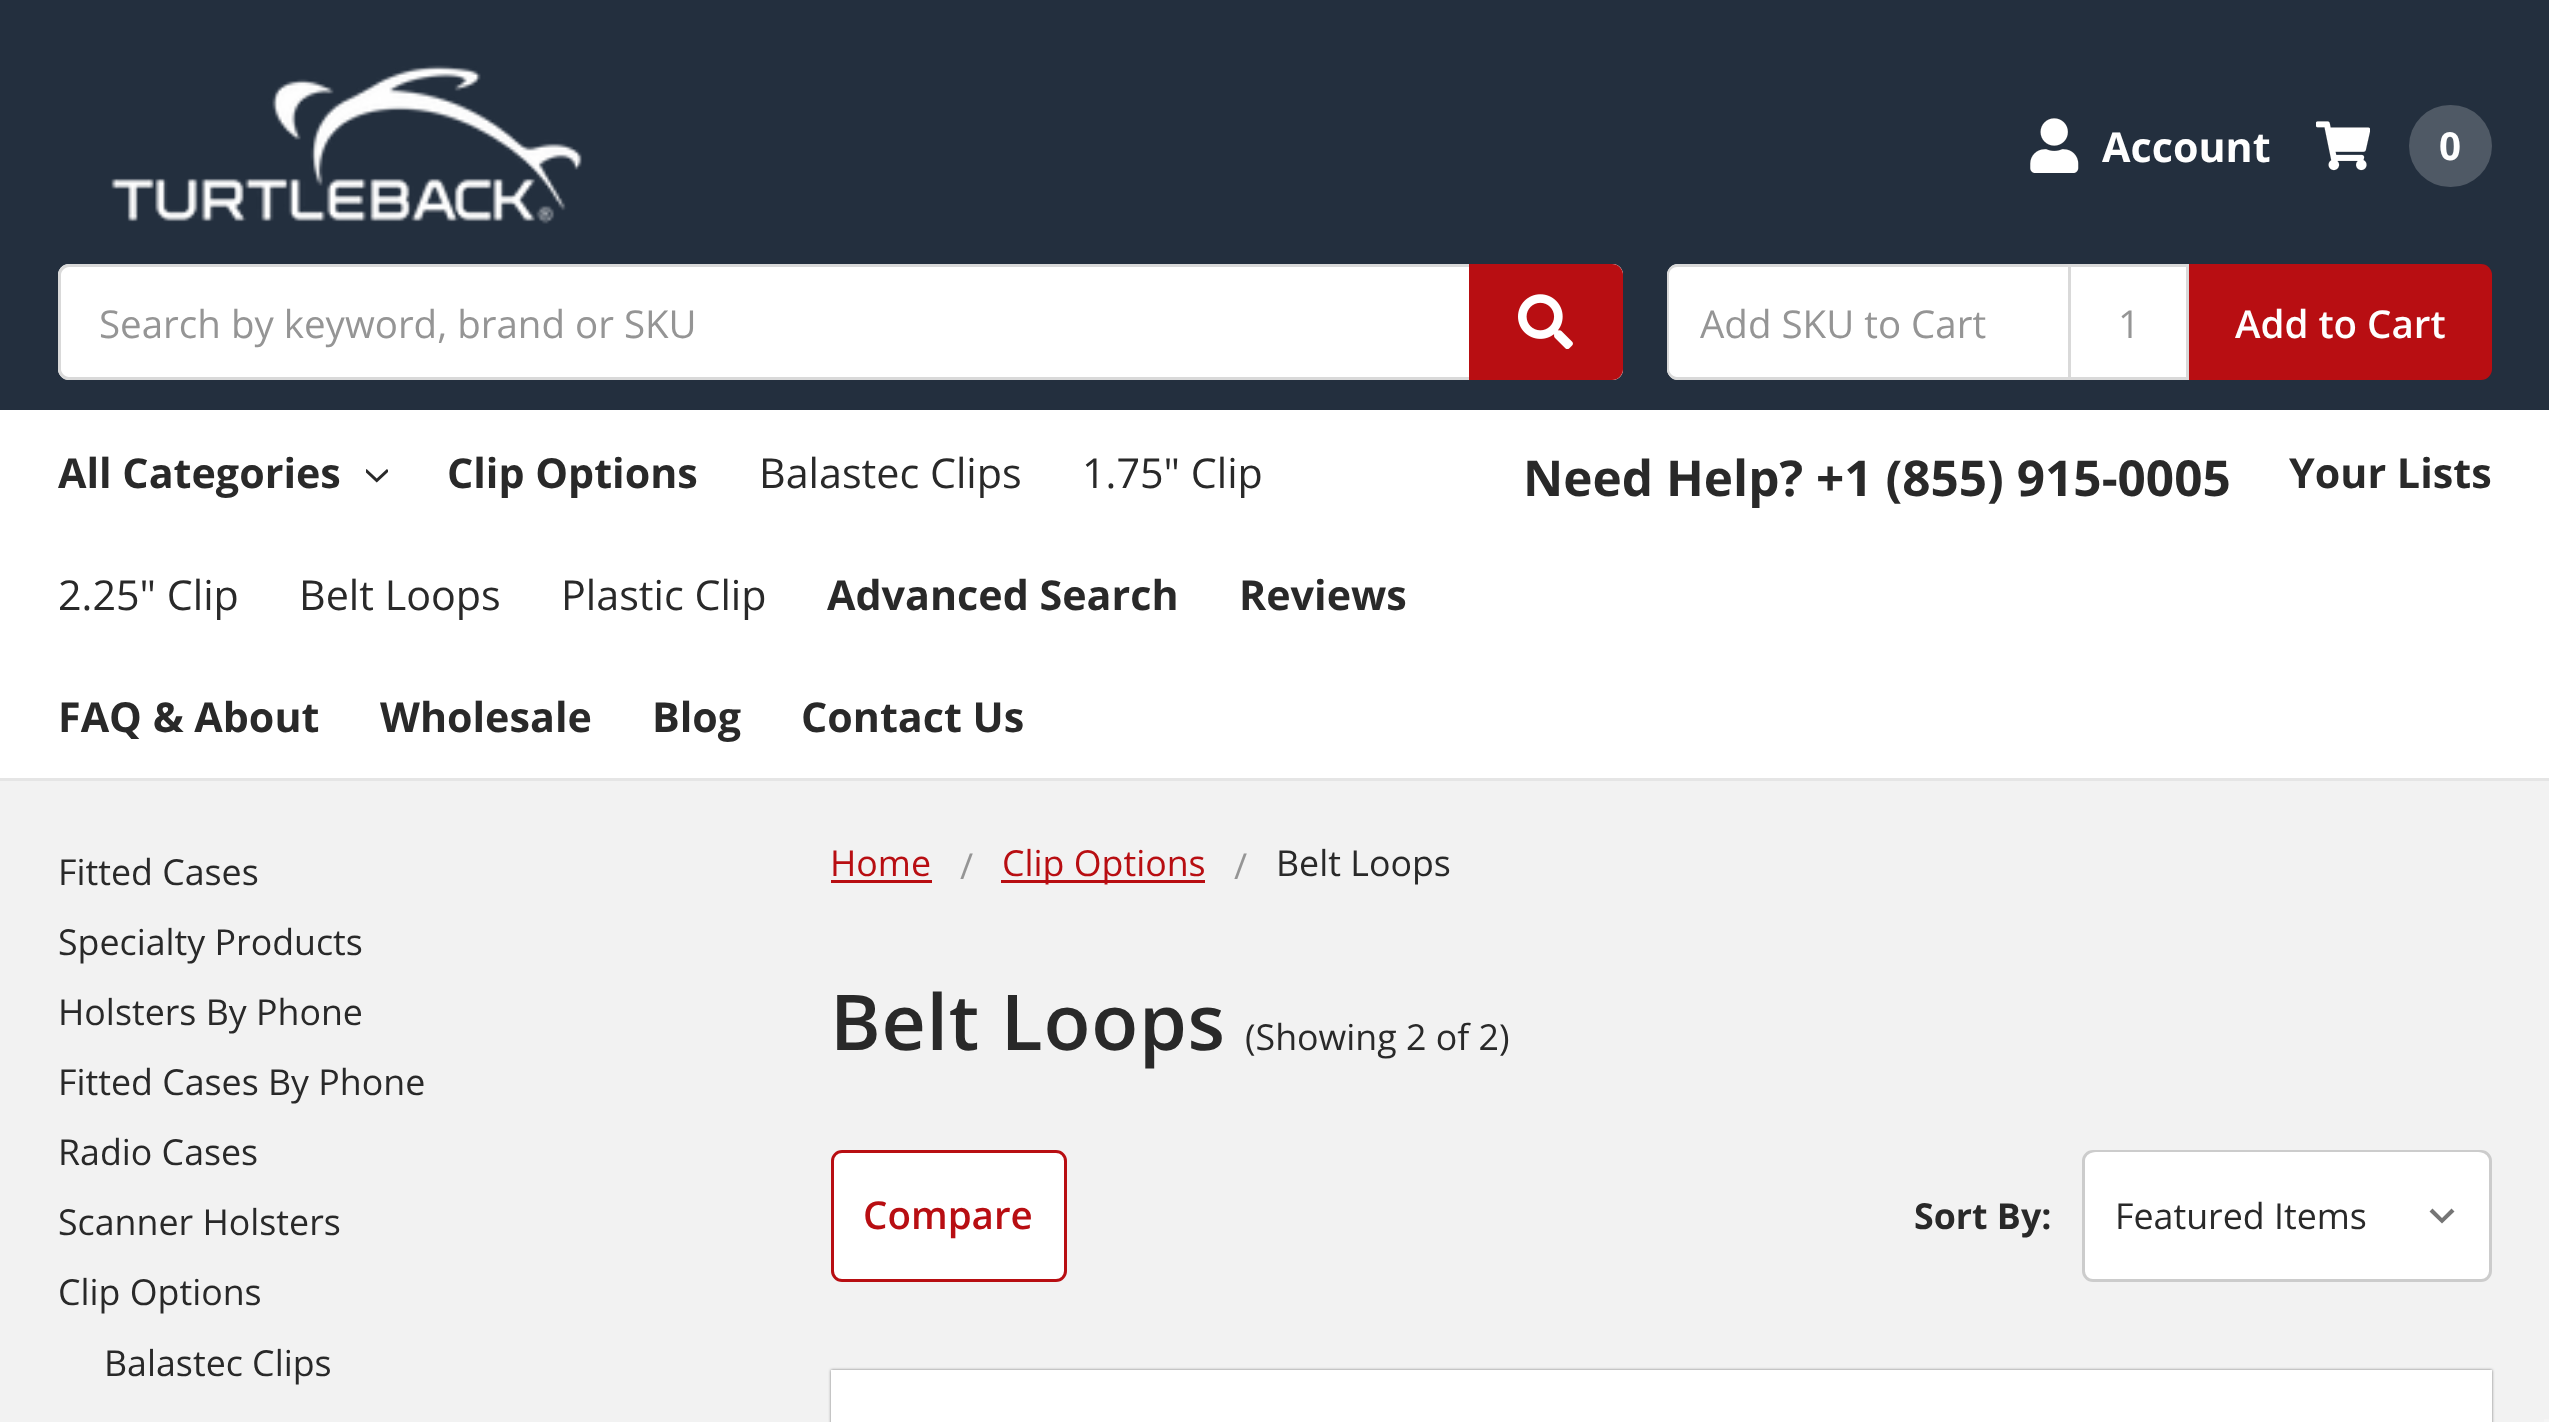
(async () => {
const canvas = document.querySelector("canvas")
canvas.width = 2549
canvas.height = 1422
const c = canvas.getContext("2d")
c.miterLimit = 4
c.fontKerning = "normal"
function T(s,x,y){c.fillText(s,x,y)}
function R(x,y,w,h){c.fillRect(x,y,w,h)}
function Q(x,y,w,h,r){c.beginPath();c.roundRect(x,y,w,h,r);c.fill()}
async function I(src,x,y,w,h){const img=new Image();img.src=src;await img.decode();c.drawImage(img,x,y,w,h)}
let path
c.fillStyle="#f2f2f2"
R(0,0,2549,1422)
c.fillStyle="#232f3e"
R(0,0,2549,410)
c.fillStyle="#e5e5e5"
R(0,778,2549,3)
await I("1.png",111,65,471,159)
await I("2.png",2030,118,49,55)
c.font="bold 41.25px Open Sans"
c.fillStyle="#fefefe"
T("Account",2102,162)
await I("3.png",2316,121,54,50)
c.fillStyle="#4f5965"
Q(2409,105,83,82,41)
c.font="bold 38.5px Open Sans"
c.fillStyle="#fefefe"
T("0",2439,160)
c.fillStyle="#fff"
Q(58,264,1565,116,11)
c.fillStyle="#d9d9d9"
path = new Path2D("M69 264c-6 0-11 5-11 11v94c0 6 5 11 11 11h1543c3 0 6-1 8-3h-1551c-4 0-8-4-8-8v-94c0-4 4-8 8-8h1551c-2-2-5-3-8-3zm1551 3v110c2-2 3-5 3-8v-94c0-3-1-6-3-8z")
c.fill(path,"evenodd")
c.font="38.5px Open Sans"
c.fillStyle="#959595"
T("Search by keyword, brand or SKU",99,338)
c.fillStyle="#b80e12"
c.beginPath()
c.roundRect(1469,264,154,116,[0,11,11,0])
c.fill()
await I("4.png",1518,294,55,55)
c.fillStyle="#fff"
c.beginPath()
c.roundRect(1667,264,401,116,[11,0,0,11])
c.fill()
c.fillStyle="#d9d9d9"
path = new Path2D("M1677 267h391v-3h-390c-6 0-11 5-11 11v94c0 6 5 11 11 11h390v-3h-391c-4 0-8-4-8-8v-94c0-5 4-8 8-8z")
c.fill(path)
c.fillStyle="#959595"
T("Add SKU to Cart",1700,338)
c.fillStyle="#fff"
c.beginPath()
c.rect(2069.5,265.5,118,113)
c.fill()
c.strokeStyle="#d9d9d9"
c.lineWidth=3
c.stroke()
c.fillStyle="#959595"
T("1",2118,338)
c.fillStyle="#b80e12"
c.beginPath()
c.roundRect(2189,264,303,116,[0,11,11,0])
c.fill()
c.font="600 38.5px Open Sans"
c.fillStyle="#fefefe"
T("Add to Cart",2235,338)
c.fillStyle="#fff"
R(0,410,2549,368)
c.font="bold 41.25px Open Sans"
c.fillStyle="#292929"
T("All Categories",58,488)
await I("5.png",366,469,22,14)
T("Clip Options",447,488)
c.font="41.25px Open Sans"
T("Balastec Clips",759,488)
T("1.75\" Clip",1082,488)
T("2.25\" Clip",58,610)
T("Belt Loops",299,610)
T("Plastic Clip",561,610)
c.font="bold 41.25px Open Sans"
T("Advanced Search",827,610)
T("Reviews",1239,610)
T("FAQ & About",58,732)
T("Wholesale",380,732)
T("Blog",652,732)
T("Contact Us",801,732)
c.font="bold 49.5px Open Sans"
T("Need Help? +1 (855) 915-0005",1523,496)
c.font="bold 41.25px Open Sans"
T("Your Lists",2289,488)
c.font="35.75px Open Sans"
T("Fitted Cases",58,885)
T("Specialty Products",58,955)
T("Holsters By Phone",58,1025)
T("Fitted Cases By Phone",58,1095)
T("Radio Cases",58,1165)
T("Scanner Holsters",58,1235)
T("Clip Options",58,1305)
T("Balastec Clips",104,1376)
c.fillStyle="#b80e12"
T("Home",830,876)
R(831,880,101,3)
c.fillStyle="#959595"
T("/",960,879)
c.fillStyle="#b80e12"
R(1001,880,204,3)
T("Clip Options",1002,876)
c.fillStyle="#959595"
T("/",1234,879)
c.fillStyle="#292929"
T("Belt Loops",1276,876)
c.letterSpacing="0.75px"
c.font="600 77px Open Sans"
T("Belt Loops",830,1050)
c.letterSpacing="0px"
c.font="35.75px Open Sans"
T("(Showing 2 of 2)",1245,1050)
c.fillStyle="#fff"
c.beginPath()
c.roundRect(832.5,1151.5,233,129,9.5)
c.fill()
c.strokeStyle="#b80e12"
c.stroke()
c.font="600 38.5px Open Sans"
c.fillStyle="#b80e12"
T("Compare",863,1229)
c.font="bold 35.75px Open Sans"
c.fillStyle="#292929"
T("Sort By:",1914,1229)
c.fillStyle="#fff"
c.beginPath()
c.roundRect(2083.5,1151.5,407,129,9.5)
c.fill()
c.strokeStyle="#ccc"
c.stroke()
Q(2085,1152,404,127,11)
c.fillStyle="#757575"
path = new Path2D("M2451.5 1208.5l-9.5 9.5l-9.5-9.5l-3 3l12.5 12l12.5-12z")
c.fill(path)
c.font="35.75px Open Sans"
c.fillStyle="#292929"
T("Featured Items",2115,1229)
c.fillStyle="#00000080"
c.filter="blur(1.5px)"
c.beginPath()
c.rect(831,1370,1661,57)
c.fill()
c.filter="none"
c.fillStyle="#fff"
R(831,1370,1661,52)
c.fillStyle="#f5f5f5"
R(2544,1419,5,3)
})()
